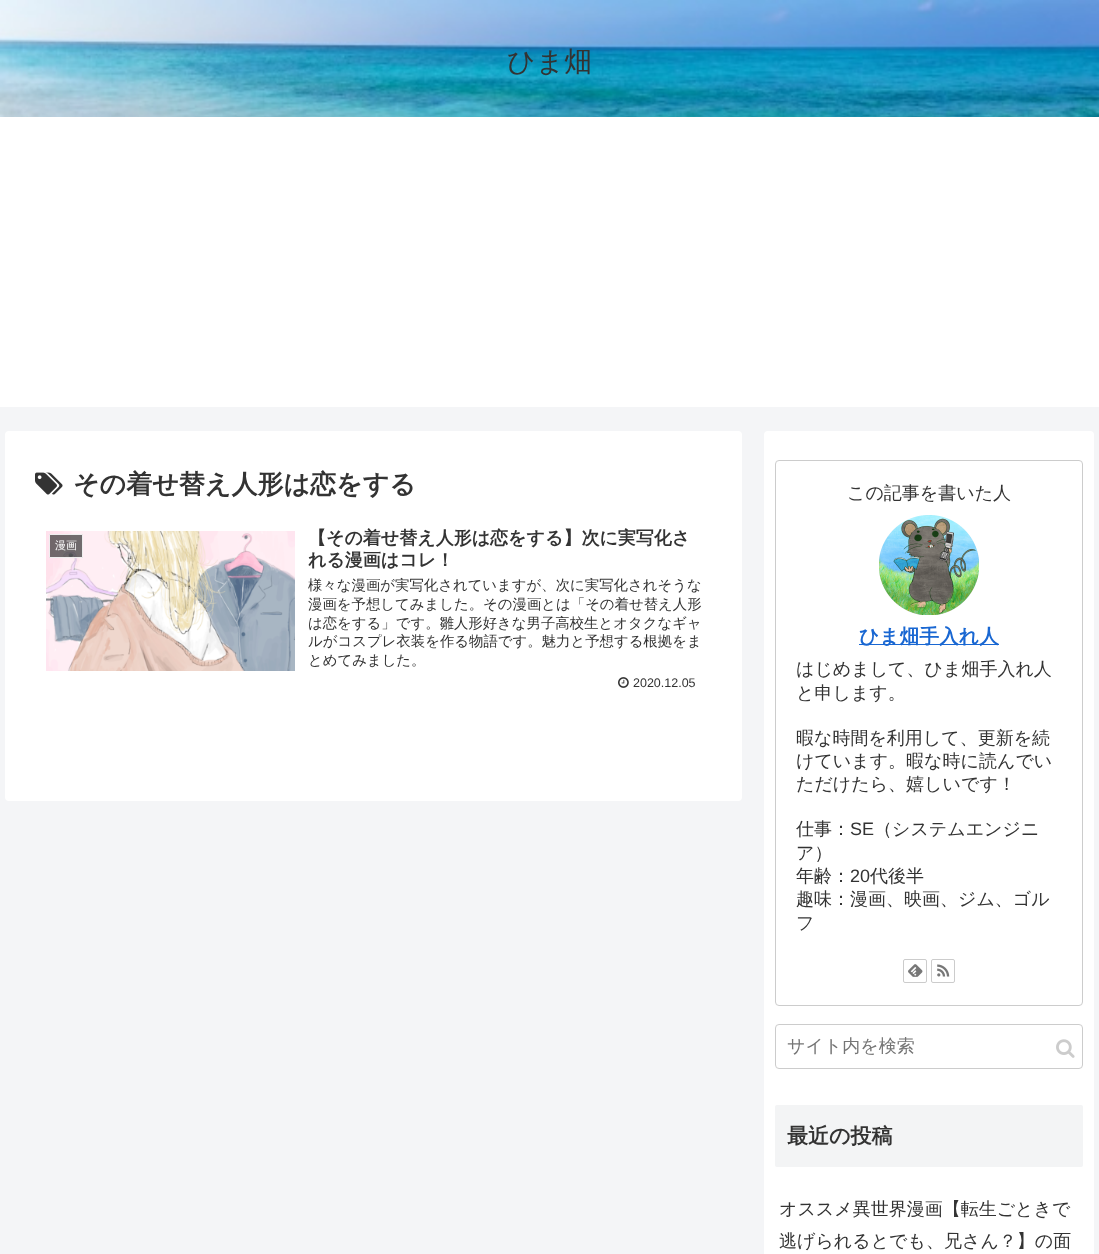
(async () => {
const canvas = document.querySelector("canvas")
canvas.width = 1099
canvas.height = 1254
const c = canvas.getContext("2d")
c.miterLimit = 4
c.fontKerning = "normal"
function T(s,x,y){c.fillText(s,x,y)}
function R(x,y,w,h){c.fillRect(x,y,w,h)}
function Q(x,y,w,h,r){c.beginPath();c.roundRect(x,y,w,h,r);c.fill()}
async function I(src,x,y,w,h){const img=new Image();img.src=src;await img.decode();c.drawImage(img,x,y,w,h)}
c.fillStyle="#f4f5f7"
R(0,0,1099,1254)
c.fillStyle="#fff"
R(0,117,1099,290)
await I("1.png",0,0,1099,117)
c.font="500 28px WenQuanYi Zen Hei"
c.fillStyle="#333"
T("ひま畑",507,71)
c.fillStyle="#fff"
Q(5,431,737,370,4)
await I("2.png",35,472,28,23)
c.font="bold 26px WenQuanYi Zen Hei"
c.fillStyle="#333"
T("その着せ替え人形は恋をする",73,493)
await I("3.png",46,531,249,140)
c.fillStyle="#333333b3"
c.beginPath()
c.rect(49.5,534.5,33,23)
c.fill()
c.strokeStyle="#eee"
c.stroke()
c.font="500 11px WenQuanYi Zen Hei"
c.fillStyle="#fff"
T("漫画",55,549)
c.font="bold 18px WenQuanYi Zen Hei"
c.fillStyle="#333"
T("【その着せ替え人形は恋をする】次に実写化さ",308,544)
T("れる漫画はコレ！",308,566)
c.font="500 14.4px WenQuanYi Zen Hei"
T("様々な漫画が実写化されていますが、次に実写化されそうな",308,590)
T("漫画を予想してみました。その漫画とは「その着せ替え人形",308,609)
T("は恋をする」です。雛人形好きな男子高校生とオタクなギャ",308,628)
T("ルがコスプレ衣装を作る物語です。魅力と予想する根拠をま",308,646)
T("とめてみました。",308,665)
await I("4.png",618,677,11,11)
c.font="12.5px Liberation Sans"
T("2020.12.05",633,687)
c.fillStyle="#fff"
Q(764,431,330,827,4)
c.beginPath()
c.roundRect(775.5,460.5,307,545,3.5)
c.strokeStyle="#ccc"
c.stroke()
c.font="500 18px WenQuanYi Zen Hei"
c.fillStyle="#333"
T("この記事を書いた人",847,499)
await I("5.png",879,515,100,100)
c.fillStyle="#1967d2"
R(859,644,140,1)
c.font="bold 19.75px WenQuanYi Zen Hei"
T("ひま畑手入れ人",859,643)
c.font="500 18px WenQuanYi Zen Hei"
c.fillStyle="#333"
T("はじめまして、ひま畑手入れ人",796,675)
T("と申します。",796,699)
T("暇な時間を利用して、更新を続",796,744)
T("けています。暇な時に読んでい",796,767)
T("ただけたら、嬉しいです！",796,790)
T("仕事：",796,835)
c.font="18px Liberation Sans"
T("SE",850,835)
c.font="500 18px WenQuanYi Zen Hei"
T("（システムエンジニ",874,835)
T("ア）",796,859)
T("年齢：",796,882)
c.font="18px Liberation Sans"
T("20",850,882)
c.font="500 18px WenQuanYi Zen Hei"
T("代後半",870,882)
T("趣味：漫画、映画、ジム、ゴル",796,905)
T("フ",796,929)
c.beginPath()
c.roundRect(903.5,959.5,23,23,1.5)
c.stroke()
await I("6.png",908,964,15,13)
c.beginPath()
c.roundRect(931.5,959.5,23,23,1.5)
c.stroke()
await I("7.png",937,964,13,13)
c.beginPath()
c.roundRect(775.5,1024.5,307,44,3.5)
c.stroke()
c.fillStyle="#757575"
T("サイト内を検索",787,1052)
await I("8.png",1056,1039,19,19)
c.fillStyle="#f3f4f5"
Q(775,1105,308,62,2)
c.font="bold 21px WenQuanYi Zen Hei"
c.fillStyle="#333"
T("最近の投稿",787,1143)
c.font="500 18px WenQuanYi Zen Hei"
T("オススメ異世界漫画【転生ごときで",779,1215)
T("逃げられるとでも、兄さん？】の面",779,1247)
})()
